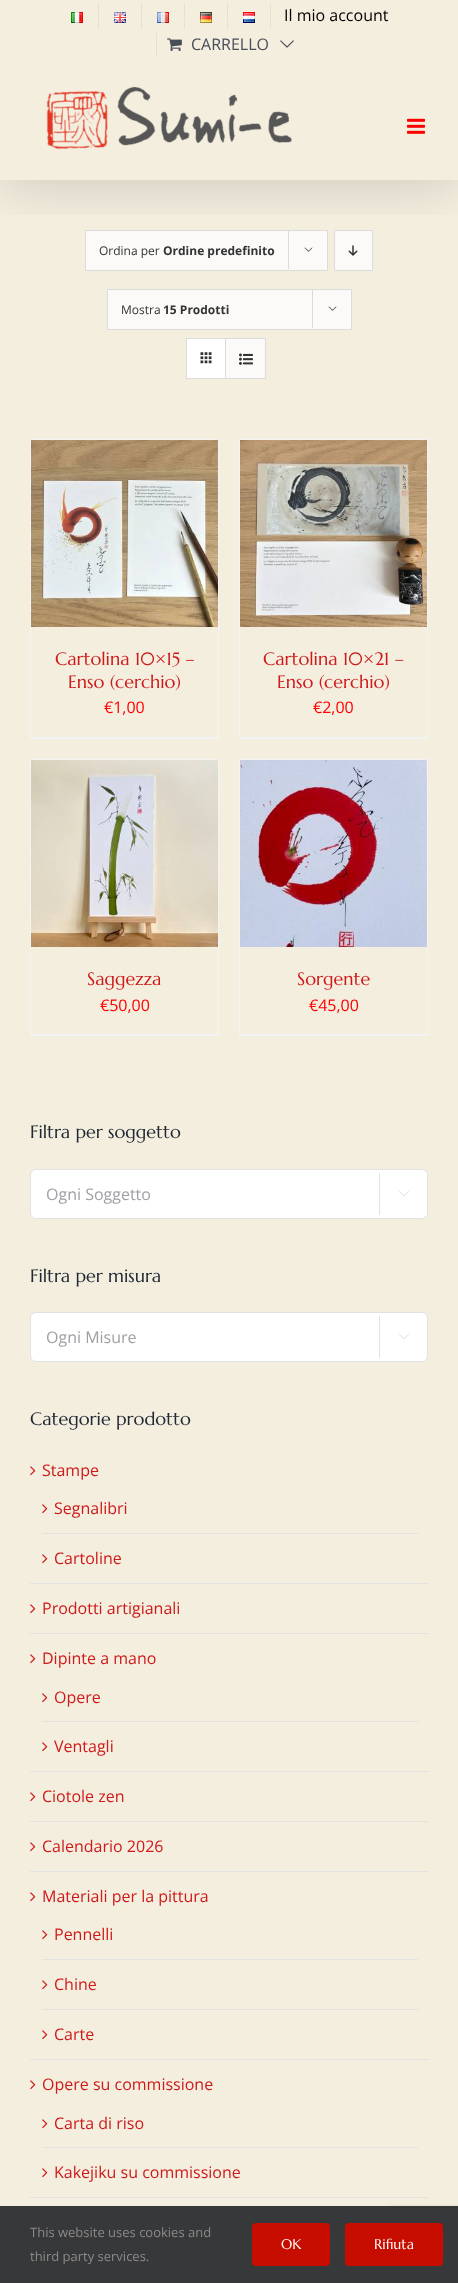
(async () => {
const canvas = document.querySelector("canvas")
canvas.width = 458
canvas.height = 2283
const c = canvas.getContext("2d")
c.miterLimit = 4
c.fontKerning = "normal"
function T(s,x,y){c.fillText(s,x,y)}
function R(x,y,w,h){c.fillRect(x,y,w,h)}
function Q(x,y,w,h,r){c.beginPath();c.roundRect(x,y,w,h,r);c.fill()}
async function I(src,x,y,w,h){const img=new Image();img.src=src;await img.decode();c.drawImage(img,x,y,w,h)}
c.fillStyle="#f4eedf"
R(0,0,458,2283)
c.fillStyle="#fbfaf9"
c.beginPath()
c.rect(85.5,230.5,242,40)
c.fill()
c.strokeStyle="#dbdbdb"
c.stroke()
c.fillStyle="#dbdbdb"
R(288,230,1,39)
await I("10.png",304,247,9,5)
c.fillStyle="#fbfaf9"
c.beginPath()
c.rect(334.5,230.5,38,40)
c.fill()
c.stroke()
await I("11.png",348,245,10,11)
c.save()
c.beginPath()
c.rect(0,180,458,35)
c.clip()
c.fillStyle="#00000024"
c.filter="blur(25px)"
c.beginPath()
c.rect(2,12,454,176)
c.fill()
c.filter="none"
c.restore()
await I("1.png",71,12,12,11)
c.fillStyle="#e5e0d2"
R(98,4,1,24)
await I("2.png",114,12,12,11)
R(141,4,1,24)
await I("3.png",157,12,12,11)
R(184,4,1,24)
await I("4.png",200,12,12,11)
R(227,4,1,24)
await I("5.png",243,12,12,11)
R(270,4,1,24)
c.font="16px Open Sans"
c.fillStyle="#000"
T("Il mio account",284,21)
c.fillStyle="#f4eedf"
R(98,23,173,1)
c.fillStyle="#e5e0d2"
R(156,33,1,24)
await I("6.png",167,38,15,13)
c.fillStyle="#4a4e57"
T("CARRELLO",191,50)
await I("7.png",280,40,14,8)
await I("8.png",46,86,246,63)
await I("9.png",407,118,18,16)
c.font="12px Open Sans"
c.fillStyle="#333"
T("Ordina per",99,255)
c.font="bold 12px Open Sans"
T("Ordine predefinito",163,255)
c.fillStyle="#fbfaf9"
c.beginPath()
c.rect(107.5,289.5,244,40)
c.fill()
c.stroke()
c.font="12px Open Sans"
c.fillStyle="#333"
T("Mostra",121,314)
c.font="bold 12px Open Sans"
T("15 Prodotti",163,314)
c.fillStyle="#dbdbdb"
R(312,289,1,39)
await I("10.png",328,306,9,5)
c.strokeRect(186.5,338.5,79,40)
c.fillStyle="#fff"
R(187,339,38,39)
c.fillStyle="#dbdbdb"
R(225,339,1,39)
await I("12.png",200,352,12,12)
c.fillStyle="#fbfaf9"
R(226,339,39,39)
await I("13.png",239,353,14,12)
c.fillStyle="#f2f3f5"
R(30,439,189,1)
R(218,439,1,300)
R(30,737,189,2)
R(30,439,1,300)
await I("14.png",31,440,187,187)
c.font="18px Marcellus"
c.fillStyle="#ce1a1a"
T("Cartolina 10×15 –",55,665)
T("Enso (cerchio)",68,688)
c.font="16px Open Sans"
c.fillStyle="#f00"
T("€1,00",104,713)
c.fillStyle="#f2f3f5"
R(239,439,189,1)
R(427,439,1,300)
R(239,737,189,2)
R(239,439,1,300)
await I("15.png",240,440,187,187)
c.font="18px Marcellus"
c.fillStyle="#ce1a1a"
T("Cartolina 10×21 –",263,665)
T("Enso (cerchio)",277,688)
c.font="16px Open Sans"
c.fillStyle="#f00"
T("€2,00",313,713)
c.fillStyle="#f2f3f5"
R(30,759,189,1)
R(218,759,1,277)
R(30,1034,189,2)
R(30,759,1,277)
await I("16.png",31,760,187,187)
c.font="18px Marcellus"
c.fillStyle="#ce1a1a"
T("Saggezza",87,985)
c.font="16px Open Sans"
c.fillStyle="#f00"
T("€50,00",100,1011)
c.fillStyle="#f2f3f5"
R(239,759,189,1)
R(427,759,1,277)
R(239,1034,189,2)
R(239,759,1,277)
await I("17.png",240,760,187,187)
c.font="18px Marcellus"
c.fillStyle="#ce1a1a"
T("Sorgente",297,985)
c.font="16px Open Sans"
c.fillStyle="#f00"
T("€45,00",309,1011)
c.font="18px Marcellus"
c.fillStyle="#212934"
T("Filtra per soggetto",30,1138)
c.fillStyle="#fff"
c.beginPath()
c.roundRect(30.5,1169.5,397,49,5.5)
c.fill()
c.strokeStyle="#e2e2e2"
c.stroke()
c.font="16px Open Sans"
c.fillStyle="#9ea0a4"
T("Ogni Soggetto",46,1200)
c.fillStyle="#fff"
Q(379,1170,48,48,6)
c.fillStyle="#e2e2e2"
R(379,1173,1,42)
await I("18.png",399,1191,10,5)
c.font="18px Marcellus"
c.fillStyle="#212934"
T("Filtra per misura",30,1282)
c.fillStyle="#fff"
c.beginPath()
c.roundRect(30.5,1312.5,397,49,5.5)
c.fill()
c.stroke()
c.font="16px Open Sans"
c.fillStyle="#9ea0a4"
T("Ogni Misure",46,1343)
c.fillStyle="#fff"
Q(379,1313,48,48,6)
c.fillStyle="#e2e2e2"
R(379,1316,1,42)
await I("18.png",399,1334,10,5)
c.font="18px Marcellus"
c.fillStyle="#212934"
T("Categorie prodotto",30,1425)
c.fillStyle="#e2e2e2"
R(30,1583,398,1)
await I("19.png",30,1466,6,10)
c.font="16px Open Sans"
c.fillStyle="#ce1a1a"
T("Stampe",42,1476)
c.fillStyle="#e2e2e2"
R(42,1533,376,1)
await I("19.png",42,1504,6,10)
c.fillStyle="#ce1a1a"
T("Segnalibri",54,1514)
await I("19.png",42,1554,6,10)
T("Cartoline",54,1564)
c.fillStyle="#e2e2e2"
R(30,1633,398,1)
await I("19.png",30,1604,6,10)
c.fillStyle="#ce1a1a"
T("Prodotti artigianali",42,1614)
c.fillStyle="#e2e2e2"
R(30,1771,398,1)
await I("19.png",30,1654,6,10)
c.fillStyle="#ce1a1a"
T("Dipinte a mano",42,1664)
c.fillStyle="#e2e2e2"
R(42,1721,376,1)
await I("19.png",42,1693,6,10)
c.fillStyle="#ce1a1a"
T("Opere",54,1703)
await I("19.png",42,1742,6,10)
T("Ventagli",54,1752)
c.fillStyle="#e2e2e2"
R(30,1821,398,1)
await I("19.png",30,1792,6,10)
c.fillStyle="#ce1a1a"
T("Ciotole zen",42,1802)
c.fillStyle="#e2e2e2"
R(30,1871,398,1)
await I("19.png",30,1842,6,10)
c.fillStyle="#ce1a1a"
T("Calendario 2026",42,1852)
c.fillStyle="#e2e2e2"
R(30,2059,398,1)
await I("19.png",30,1892,6,10)
c.fillStyle="#ce1a1a"
T("Materiali per la pittura",42,1902)
c.fillStyle="#e2e2e2"
R(42,1959,376,1)
await I("19.png",42,1930,6,10)
c.fillStyle="#ce1a1a"
T("Pennelli",54,1940)
c.fillStyle="#e2e2e2"
R(42,2009,376,1)
await I("19.png",42,1980,6,10)
c.fillStyle="#ce1a1a"
T("Chine",54,1990)
await I("19.png",42,2030,6,10)
T("Carte",54,2040)
c.fillStyle="#e2e2e2"
R(30,2197,398,1)
await I("19.png",30,2080,6,10)
c.fillStyle="#ce1a1a"
T("Opere su commissione",42,2090)
c.fillStyle="#e2e2e2"
R(42,2147,376,1)
await I("19.png",42,2119,6,10)
c.fillStyle="#ce1a1a"
T("Carta di riso",54,2129)
await I("19.png",42,2168,6,10)
T("Kakejiku su commissione",54,2178)
c.fillStyle="#808080"
c.filter="blur(2.5px)"
c.beginPath()
c.roundRect(388,2209,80,60,2)
c.fill()
c.filter="none"
c.fillStyle="#363839"
R(0,2206,458,77)
c.font="13px Open Sans"
c.fillStyle="#8c8989"
T("This website uses cookies and",30,2237)
T("third party services.",30,2261)
c.fillStyle="#c60d00"
Q(252,2223,78,43,4)
c.font="14px Marcellus"
c.fillStyle="#fff"
T("OK",281,2249)
c.fillStyle="#c60d00"
Q(345,2223,98,43,4)
c.fillStyle="#fff"
T("Rifiuta",374,2249)
})()
